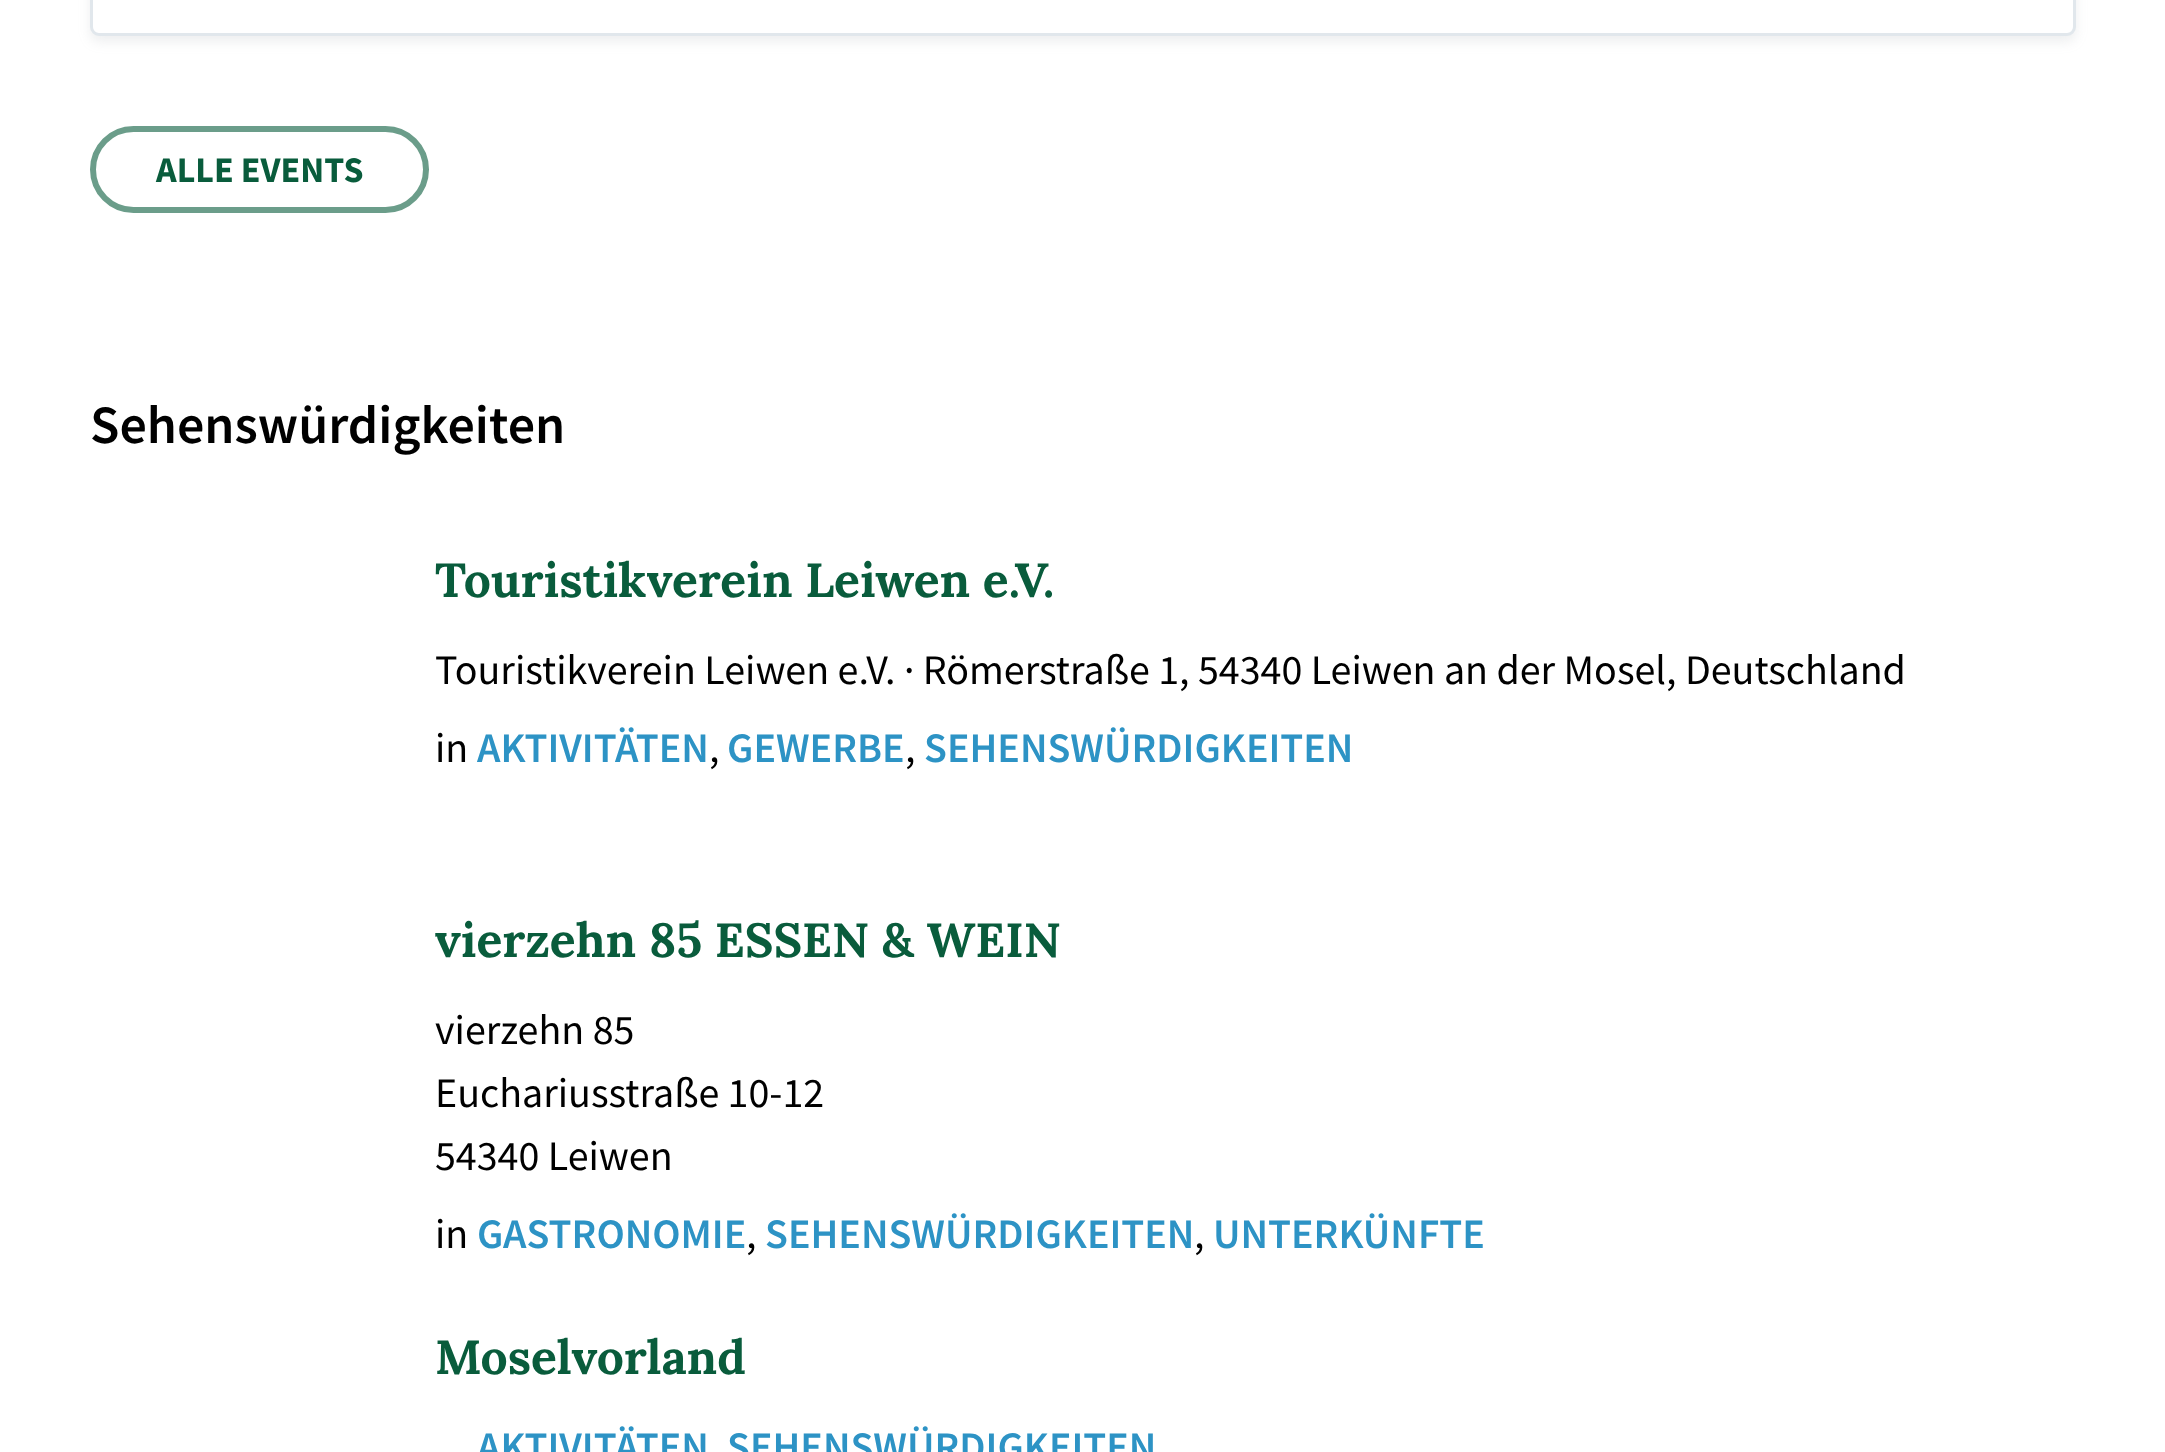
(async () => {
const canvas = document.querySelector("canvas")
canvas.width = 2165
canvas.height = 1452
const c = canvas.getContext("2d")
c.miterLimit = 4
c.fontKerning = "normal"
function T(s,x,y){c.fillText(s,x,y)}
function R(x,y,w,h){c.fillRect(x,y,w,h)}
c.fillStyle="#fff"
R(0,0,2165,1452)
c.fillStyle="#8a949b26"
c.filter="blur(6px)"
c.beginPath()
c.roundRect(90,-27,1986,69,9)
c.fill()
c.filter="none"
c.fillStyle="#fff"
c.beginPath()
c.roundRect(91.5,-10.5,1983,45,7.5)
c.fill()
c.strokeStyle="#e1e7ec"
c.lineWidth=3
c.stroke()
c.beginPath()
c.roundRect(93,129,333,81,40.5)
c.strokeStyle="#6b9d8a"
c.lineWidth=6
c.stroke()
c.font="bold 36px Source Sans Pro"
c.fillStyle="#095c3c"
T("ALLE EVENTS",156,182)
c.font="600 54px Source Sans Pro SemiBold"
c.fillStyle="#000"
T("Sehenswürdigkeiten",90,443)
c.font="bold 48px Lora"
c.fillStyle="#095c3c"
T("Touristikverein Leiwen e.V.",435,597)
c.font="42px Source Sans Pro"
c.fillStyle="#000"
T("Touristikverein Leiwen e.V. · Römerstraße 1, 54340 Leiwen an der Mosel, Deutschland",435,684)
T("in",435,762)
c.font="600 42px Source Sans Pro SemiBold"
c.fillStyle="#2d93c5"
T("AKTIVITÄTEN",477,762)
c.font="42px Source Sans Pro"
c.fillStyle="#000"
T(",",709,762)
c.font="600 42px Source Sans Pro SemiBold"
c.fillStyle="#2d93c5"
T("GEWERBE",727,762)
c.font="42px Source Sans Pro"
c.fillStyle="#000"
T(",",905,762)
c.font="600 42px Source Sans Pro SemiBold"
c.fillStyle="#2d93c5"
T("SEHENSWÜRDIGKEITEN",924,762)
c.font="bold 48px Lora"
c.fillStyle="#095c3c"
T("vierzehn 85 ESSEN & WEIN",435,957)
c.font="42px Source Sans Pro"
c.fillStyle="#000"
T("vierzehn 85",435,1044)
T("Euchariusstraße 10-12",435,1107)
T("54340 Leiwen",435,1170)
T("in",435,1248)
c.font="600 42px Source Sans Pro SemiBold"
c.fillStyle="#2d93c5"
T("GASTRONOMIE",477,1248)
c.font="42px Source Sans Pro"
c.fillStyle="#000"
T(",",746,1248)
c.font="600 42px Source Sans Pro SemiBold"
c.fillStyle="#2d93c5"
T("SEHENSWÜRDIGKEITEN",765,1248)
c.font="42px Source Sans Pro"
c.fillStyle="#000"
T(",",1194,1248)
c.font="600 42px Source Sans Pro SemiBold"
c.fillStyle="#2d93c5"
T("UNTERKÜNFTE",1213,1248)
c.font="bold 48px Lora"
c.fillStyle="#095c3c"
T("Moselvorland",435,1374)
c.font="600 42px Source Sans Pro SemiBold"
c.fillStyle="#2d93c5"
T("AKTIVITÄTEN",477,1461)
T("SEHENSWÜRDIGKEITEN",727,1461)
})()
